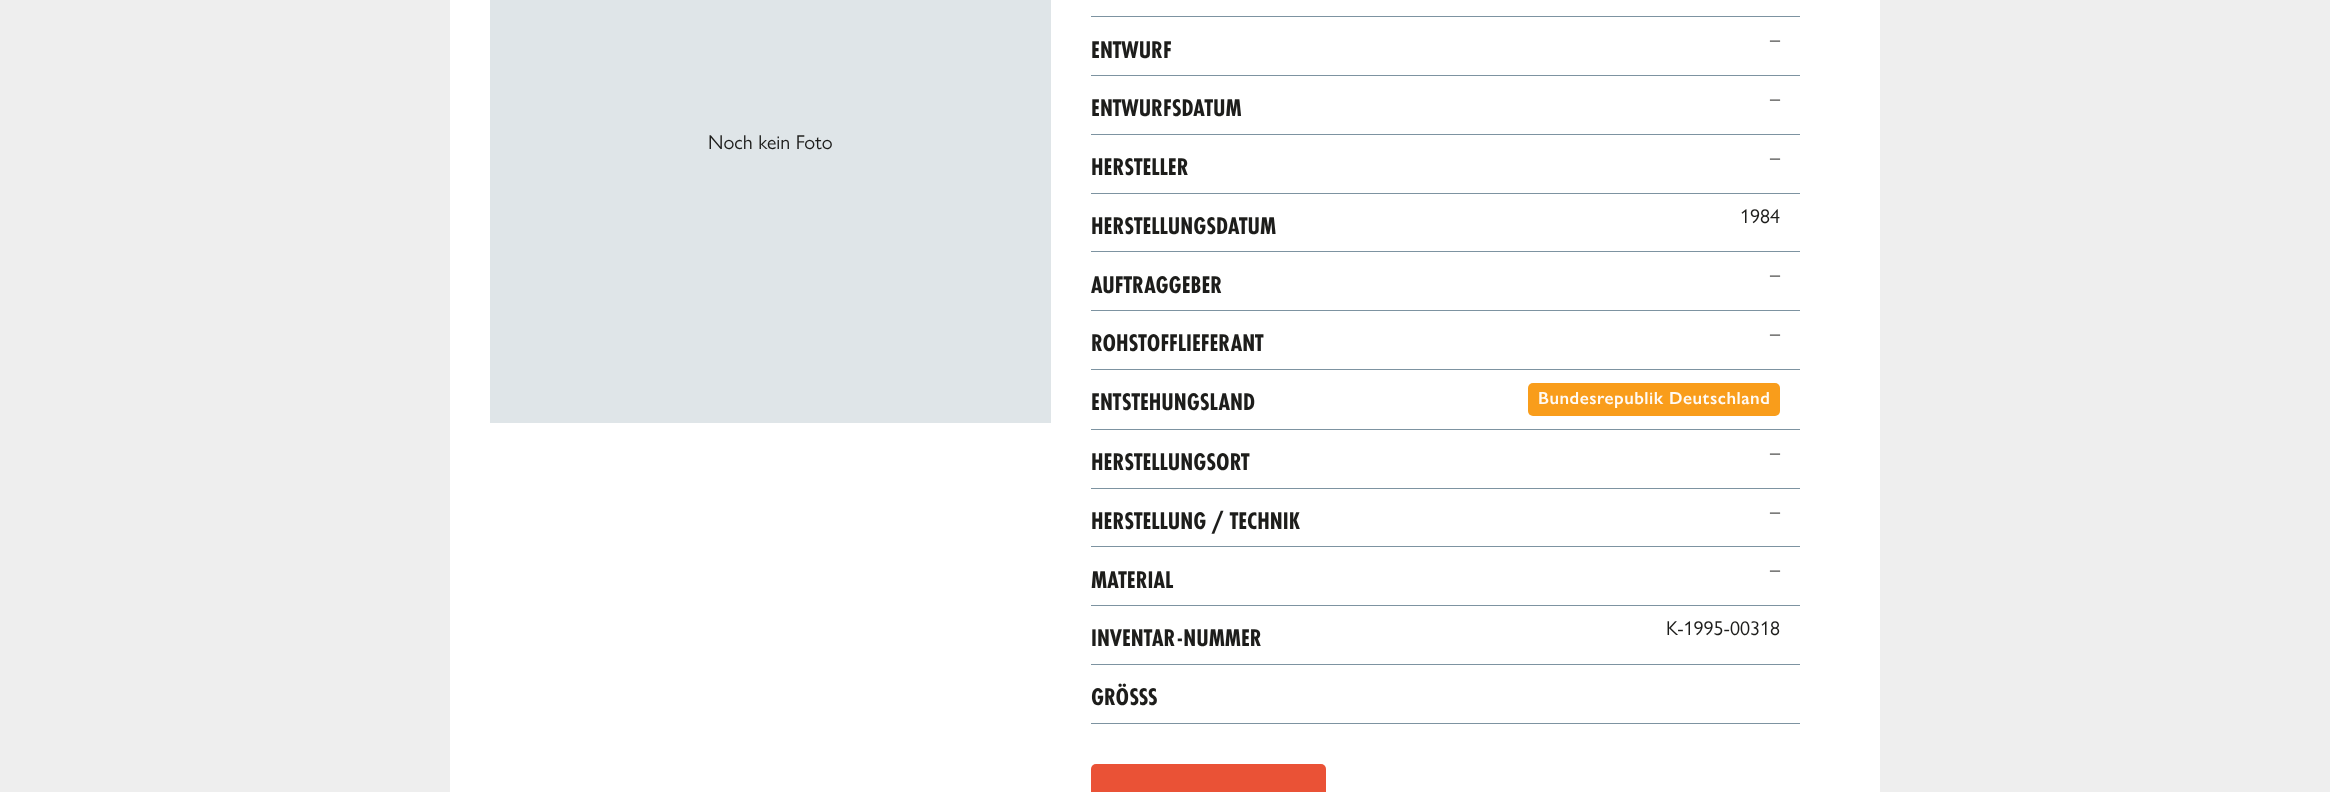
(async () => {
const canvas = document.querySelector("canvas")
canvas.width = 2330
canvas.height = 792
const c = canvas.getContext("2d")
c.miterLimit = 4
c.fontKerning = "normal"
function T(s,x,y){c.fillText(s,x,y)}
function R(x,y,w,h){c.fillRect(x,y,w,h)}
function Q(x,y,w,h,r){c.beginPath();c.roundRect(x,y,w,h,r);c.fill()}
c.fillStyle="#eee"
R(0,0,2330,792)
c.fillStyle="#fff"
R(450,0,1430,792)
c.fillStyle="#dfe5e8"
R(490,0,561,423)
c.font="20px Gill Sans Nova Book"
c.fillStyle="#1d1d1b"
T("Noch kein Foto",708,149)
c.fillStyle="#7d93a1"
R(1091,16,709,1)
c.font="bold 25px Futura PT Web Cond"
c.fillStyle="#1d1d1b"
T("ENTWURF",1091,58)
c.fillStyle="#7d93a1"
R(1091,75,709,1)
c.font="20px Gill Sans Nova Book"
c.fillStyle="#1d1d1b"
T("–",1770,46)
c.font="bold 25px Futura PT Web Cond"
T("ENTWURFSDATUM",1091,116)
c.fillStyle="#7d93a1"
R(1091,134,709,1)
c.font="20px Gill Sans Nova Book"
c.fillStyle="#1d1d1b"
T("–",1770,105)
c.font="bold 25px Futura PT Web Cond"
T("HERSTELLER",1091,175)
c.fillStyle="#7d93a1"
R(1091,193,709,1)
c.font="20px Gill Sans Nova Book"
c.fillStyle="#1d1d1b"
T("–",1770,164)
c.font="bold 25px Futura PT Web Cond"
T("HERSTELLUNGSDATUM",1091,234)
c.fillStyle="#7d93a1"
R(1091,251,709,1)
c.font="20px Gill Sans Nova Book"
c.fillStyle="#1d1d1b"
T("1984",1740,223)
c.font="bold 25px Futura PT Web Cond"
T("AUFTRAGGEBER",1091,293)
c.fillStyle="#7d93a1"
R(1091,310,709,1)
c.font="20px Gill Sans Nova Book"
c.fillStyle="#1d1d1b"
T("–",1770,281)
c.font="bold 25px Futura PT Web Cond"
T("ROHSTOFFLIEFERANT",1091,351)
c.fillStyle="#7d93a1"
R(1091,369,709,1)
c.font="20px Gill Sans Nova Book"
c.fillStyle="#1d1d1b"
T("–",1770,340)
c.font="bold 25px Futura PT Web Cond"
T("ENTSTEHUNGSLAND",1091,410)
c.fillStyle="#7d93a1"
R(1091,429,709,1)
c.fillStyle="#f99d1b"
Q(1528,383,252,33,5)
c.letterSpacing="0.5px"
c.font="600 17.5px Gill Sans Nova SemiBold"
c.fillStyle="#fffaf4"
T("Bundesrepublik Deutschland",1538,404)
c.letterSpacing="0px"
c.font="bold 25px Futura PT Web Cond"
c.fillStyle="#1d1d1b"
T("HERSTELLUNGSORT",1091,470)
c.fillStyle="#7d93a1"
R(1091,488,709,1)
c.font="20px Gill Sans Nova Book"
c.fillStyle="#1d1d1b"
T("–",1770,459)
c.font="bold 25px Futura PT Web Cond"
T("HERSTELLUNG / TECHNIK",1091,529)
c.fillStyle="#7d93a1"
R(1091,546,709,1)
c.font="20px Gill Sans Nova Book"
c.fillStyle="#1d1d1b"
T("–",1770,518)
c.font="bold 25px Futura PT Web Cond"
T("MATERIAL",1091,588)
c.fillStyle="#7d93a1"
R(1091,605,709,1)
c.font="20px Gill Sans Nova Book"
c.fillStyle="#1d1d1b"
T("–",1770,576)
c.font="bold 25px Futura PT Web Cond"
T("INVENTAR-NUMMER",1091,646)
c.fillStyle="#7d93a1"
R(1091,664,709,1)
c.font="20px Gill Sans Nova Book"
c.fillStyle="#1d1d1b"
T("K-1995-00318",1666,635)
c.font="bold 25px Futura PT Web Cond"
T("GRÖSSS",1091,705)
c.fillStyle="#7d93a1"
R(1091,723,709,1)
c.fillStyle="#ea5236"
Q(1091,764,235,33,5)
})()
